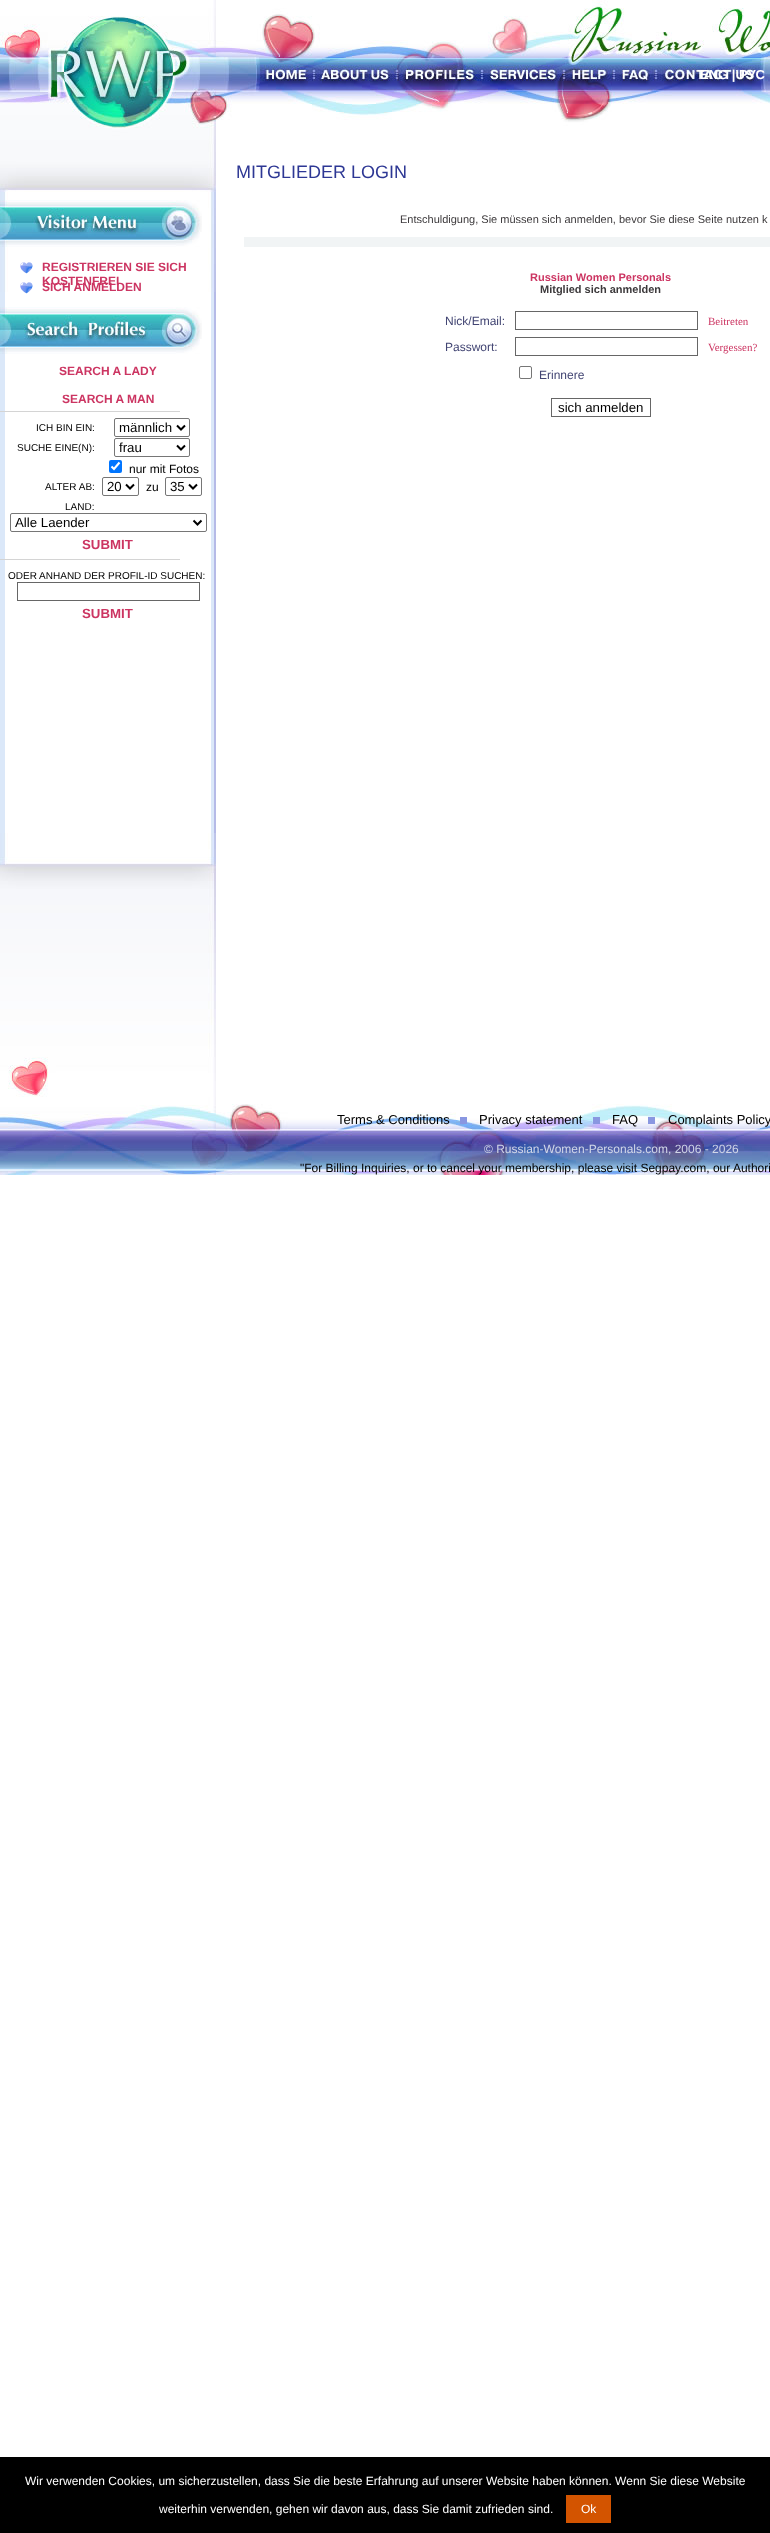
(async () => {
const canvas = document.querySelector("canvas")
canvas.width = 770
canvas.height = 2533
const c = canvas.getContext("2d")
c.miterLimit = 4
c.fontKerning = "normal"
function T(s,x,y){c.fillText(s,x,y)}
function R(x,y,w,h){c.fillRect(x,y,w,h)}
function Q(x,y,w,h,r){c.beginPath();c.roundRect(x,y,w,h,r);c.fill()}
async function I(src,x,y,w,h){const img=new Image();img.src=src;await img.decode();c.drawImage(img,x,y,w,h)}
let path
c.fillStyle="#fff"
R(0,0,770,2533)
await I("1.png",216,0,554,126)
await I("2.png",216,1104,554,71)
await I("3.png",0,292,216,541)
await I("16.png",656,57,112,35)
c.font="bold 13px Liberation Sans"
T("ENG | РУС",700,79)
await I("4.png",0,833,216,342)
await I("5.png",0,0,216,292)
await I("6.png",0,200,202,47)
await I("7.png",20,262,13,12)
c.font="bold 12px Liberation Sans"
c.fillStyle="#cc3562"
T("REGISTRIEREN SIE SICH",42,271)
T("KOSTENFREI",42,285)
await I("7.png",20,282,13,12)
T("SICH ANMELDEN",42,291)
await I("8.png",0,307,202,47)
T("SEARCH A LADY",59,375)
T("SEARCH A MAN",62,403)
c.fillStyle="#d4d4d4"
R(0,411,180,1)
c.font="10px Liberation Sans"
c.fillStyle="#000"
T("ICH BIN EIN:",36,431)
c.beginPath()
c.roundRect(114.5,418.5,75,18,1.5)
c.strokeStyle="#767676"
c.stroke()
path = new Path2D("M177 425.5l4 4l4-4")
c.strokeStyle="#000"
c.lineWidth=2
c.stroke(path)
c.font="13.25px Liberation Sans"
T("männlich",119,432)
c.font="10px Liberation Sans"
T("SUCHE EINE(N):",17,451)
c.beginPath()
c.roundRect(114.5,438.5,75,18,1.5)
c.strokeStyle="#767676"
c.lineWidth=1
c.stroke()
path = new Path2D("M177 445.5l4 4l4-4")
c.strokeStyle="#000"
c.lineWidth=2
c.stroke(path)
c.font="13.25px Liberation Sans"
T("frau",119,452)
c.fillStyle="#0075ff"
Q(109,460,13,13,2)
path = new Path2D("M111.5 466.5l2.5 2.5l5.5-6.5")
c.strokeStyle="#fff"
c.lineWidth=2.1
c.stroke(path)
c.font="12px Liberation Sans"
c.fillStyle="#000"
T("nur mit Fotos",129,473)
c.font="10px Liberation Sans"
T("ALTER AB:",45,490)
c.beginPath()
c.roundRect(102.5,477.5,36,18,1.5)
c.strokeStyle="#767676"
c.lineWidth=1
c.stroke()
path = new Path2D("M126 484.5l4 4l4-4")
c.strokeStyle="#000"
c.lineWidth=2
c.stroke(path)
c.font="13.25px Liberation Sans"
T("20",107,491)
c.font="12px Liberation Sans"
T("zu",146,491)
c.beginPath()
c.roundRect(165.5,477.5,36,18,1.5)
c.strokeStyle="#767676"
c.lineWidth=1
c.stroke()
path = new Path2D("M189 484.5l4 4l4-4")
c.strokeStyle="#000"
c.lineWidth=2
c.stroke(path)
c.font="13.25px Liberation Sans"
T("35",170,491)
c.font="10px Liberation Sans"
T("LAND:",65,510)
c.beginPath()
c.roundRect(10.5,513.5,196,18,1.5)
c.strokeStyle="#767676"
c.lineWidth=1
c.stroke()
path = new Path2D("M193.5 520.5l4 4l4-4")
c.strokeStyle="#000"
c.lineWidth=2
c.stroke(path)
c.font="13.25px Liberation Sans"
T("Alle Laender",15,527)
c.font="bold 13.25px Liberation Sans"
c.fillStyle="#cc3562"
T("SUBMIT",82,549)
c.fillStyle="#d4d4d4"
R(0,559,180,1)
c.font="10px Liberation Sans"
c.fillStyle="#000"
T("ODER ANHAND DER PROFIL-ID SUCHEN:",8,579)
c.strokeStyle="#666"
c.lineWidth=1
c.strokeRect(17.5,582.5,182,18)
c.font="bold 13.25px Liberation Sans"
c.fillStyle="#cc3562"
T("SUBMIT",82,618)
await I("9.png",216,57,44,35)
await I("10.png",260,57,54,35)
await I("11.png",314,57,83,35)
await I("12.png",397,57,85,35)
await I("13.png",482,57,82,35)
await I("14.png",564,57,50,35)
await I("15.png",614,57,42,35)
c.font="18px Liberation Sans"
c.fillStyle="#2d3794"
T("MITGLIEDER LOGIN",236,178)
c.font="11px Liberation Sans"
c.fillStyle="#3c393b"
T("Entschuldigung, Sie müssen sich anmelden, bevor Sie diese Seite nutzen k",400,223)
c.fillStyle="#f1f4f5"
R(244,237,526,10)
c.font="bold 11px Liberation Sans"
c.fillStyle="#cc3562"
T("Russian Women Personals",530,281)
c.fillStyle="#3c393b"
T("Mitglied sich anmelden",540,293)
c.font="12px Liberation Sans"
c.fillStyle="#424573"
T("Nick/Email:",445,325)
c.strokeRect(515.5,311.5,182,18)
c.font="11px Liberation Serif"
c.fillStyle="#cc3562"
T("Beitreten",708,325)
c.font="12px Liberation Sans"
c.fillStyle="#424573"
T("Passwort:",445,351)
c.strokeRect(515.5,337.5,182,18)
c.font="11px Liberation Serif"
c.fillStyle="#cc3562"
T("Vergessen?",708,351)
c.beginPath()
c.roundRect(519.5,366.5,12,12,1.5)
c.strokeStyle="#767676"
c.stroke()
c.font="12px Liberation Sans"
c.fillStyle="#424573"
T("Erinnere",539,379)
c.strokeStyle="#666"
c.strokeRect(551.5,398.5,99,18)
c.font="13.25px Liberation Sans"
c.fillStyle="#000"
T("sich anmelden",558,412)
c.font="13px Liberation Sans"
T("Terms & Conditions",337,1124)
c.fillStyle="#8997e1"
R(460,1117,7,7)
c.fillStyle="#000"
T("Privacy statement",479,1124)
c.fillStyle="#8997e1"
R(593,1117,7,7)
c.fillStyle="#000"
T("FAQ",612,1124)
c.fillStyle="#8997e1"
R(648,1117,7,7)
c.fillStyle="#000"
T("Complaints Policy",668,1124)
c.font="12px Liberation Sans"
c.fillStyle="#d1d6e8"
T("© Russian-Women-Personals.com, 2006 - 2026",484,1153)
c.fillStyle="#000"
T("\"For Billing Inquiries, or to cancel your membership, please visit Segpay.com, our Authori",300,1172)
R(0,2457,770,76)
c.fillStyle="#fff"
T("Wir verwenden Cookies, um sicherzustellen, dass Sie die beste Erfahrung auf unserer Website haben können. Wenn Sie diese Website",25,2485)
T("weiterhin verwenden, gehen wir davon aus, dass Sie damit zufrieden sind.",159,2513)
c.fillStyle="#d35400"
R(566,2495,45,28)
c.fillStyle="#fff"
T("Ok",581,2513)
})()
